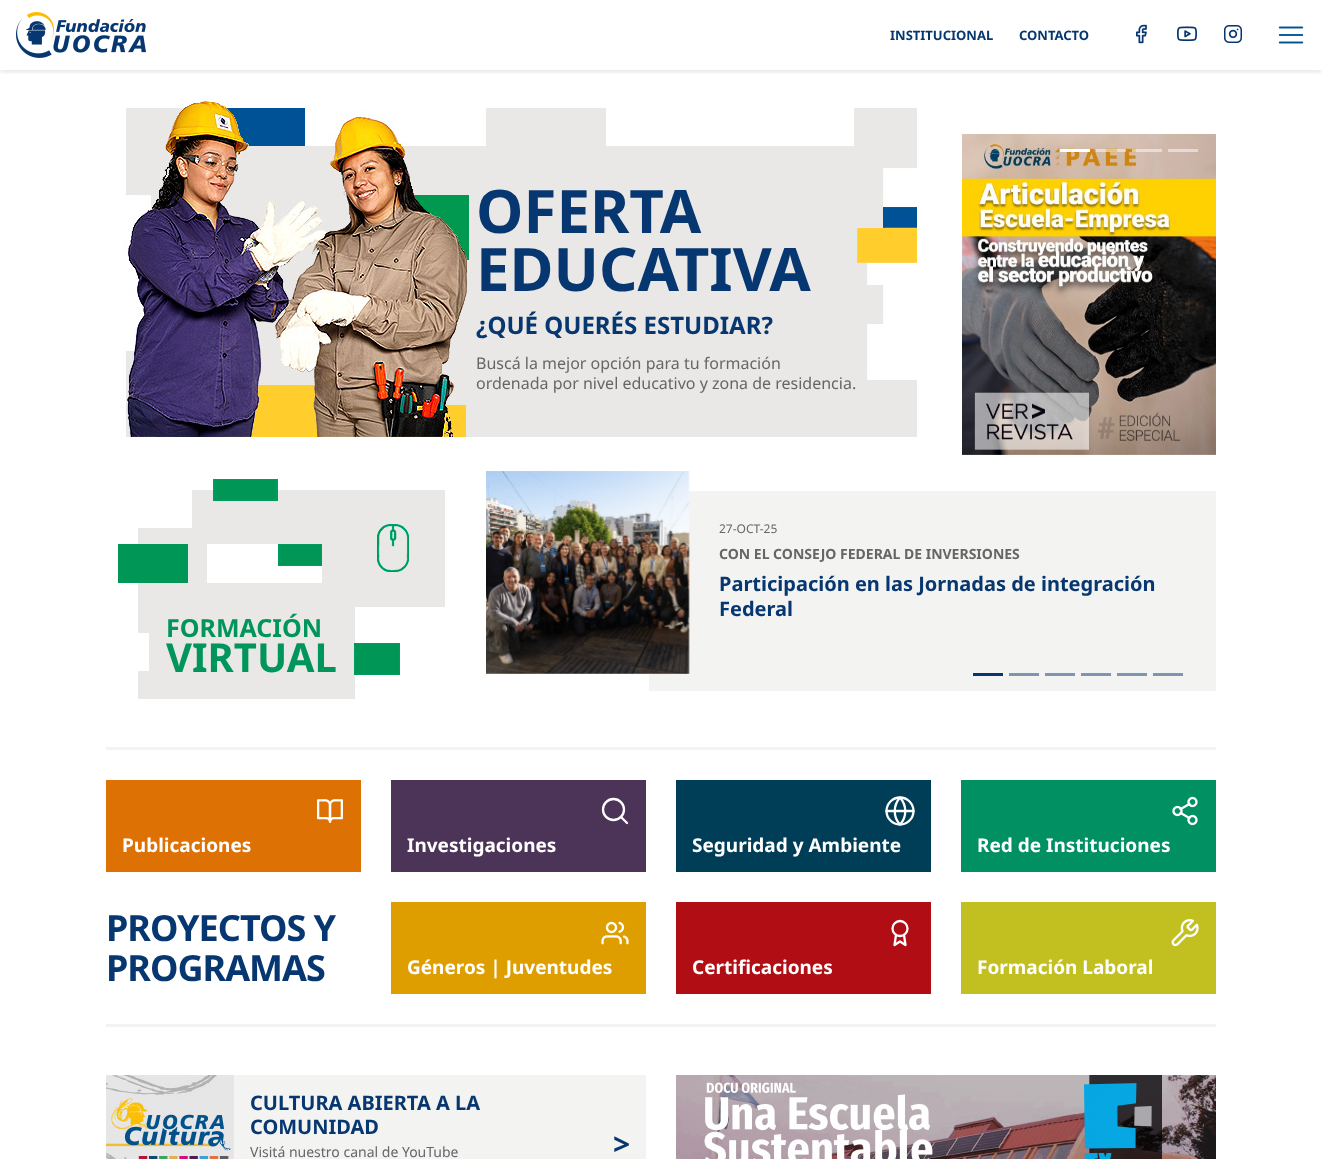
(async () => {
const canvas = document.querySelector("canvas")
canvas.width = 1322
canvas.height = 1159
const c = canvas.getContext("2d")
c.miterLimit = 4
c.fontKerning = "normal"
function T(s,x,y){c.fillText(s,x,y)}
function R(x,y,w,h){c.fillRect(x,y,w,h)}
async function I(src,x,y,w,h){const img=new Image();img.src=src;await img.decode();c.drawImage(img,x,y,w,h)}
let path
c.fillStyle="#fff"
R(0,0,1322,1159)
c.save()
c.beginPath()
c.rect(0,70,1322,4)
c.clip()
c.fillStyle="#0000001a"
c.filter="blur(2.5px)"
c.beginPath()
c.rect(0,2,1322,70)
c.fill()
c.filter="none"
c.restore()
await I("1.png",16,12,130,46)
c.font="bold 13px Noto Sans"
c.fillStyle="#073770"
T("INSTITUCIONAL",890,40)
T("CONTACTO",1019,40)
await I("2.png",1136,24,11,20)
await I("3.png",1177,26,20,16)
await I("4.png",1224,25,18,18)
await I("5.png",1278,26,26,18)
await I("6.png",122,95,795,342)
c.font="bold 60px Noto Sans"
T("OFERTA",476,233)
T("EDUCATIVA",476,291)
c.font="bold 24px Noto Sans"
T("¿QUÉ QUERÉS ESTUDIAR?",476,334)
c.font="16px Noto Sans"
c.fillStyle="#666"
T("Buscá la mejor opción para tu formación",476,369)
T("ordenada por nivel educativo y zona de residencia.",476,389)
await I("7.png",962,134,254,321)
c.fillStyle="#fff"
R(1060,149,30,3)
c.fillStyle="#ffffff80"
R(1096,149,30,3)
R(1132,149,30,3)
R(1168,149,30,3)
c.fillStyle="#f3f3f2"
R(649,491,567,200)
await I("8.png",486,471,204,203)
c.font="12px Noto Sans"
c.fillStyle="#666"
T("27-OCT-25",719,533)
c.font="bold 14px Noto Sans"
T("CON EL CONSEJO FEDERAL DE INVERSIONES",719,559)
c.font="bold 20px Noto Sans"
c.fillStyle="#073770"
T("Participación en las Jornadas de integración",719,591)
T("Federal",719,616)
R(973,673,30,3)
c.fillStyle="#7d95b1"
R(1009,673,30,3)
R(1045,673,30,3)
R(1081,673,30,3)
R(1117,673,30,3)
R(1153,673,30,3)
await I("9.png",118,479,327,220)
c.font="bold 25px Noto Sans"
c.fillStyle="#00955a"
T("FORMACIÓN",166,637)
c.font="bold 40px Noto Sans"
T("VIRTUAL",166,672)
c.fillStyle="#f3f3f2"
R(106,747,1110,3)
R(106,1024,1110,3)
c.fillStyle="#de7103"
R(106,780,255,92)
await I("10.png",317,799,26,24)
c.font="bold 19px Noto Sans"
c.fillStyle="#fff"
T("Publicaciones",122,852)
c.fillStyle="#4c3358"
R(391,780,255,92)
c.beginPath()
c.arc(613.5,809.5,10.5,0,7)
c.strokeStyle="#fff"
c.lineWidth=2.3
c.stroke()
path = new Path2D("M627 823l-6-6")
c.lineCap="round"
c.lineJoin="round"
c.stroke(path)
c.fillStyle="#fff"
T("Investigaciones",407,852)
c.fillStyle="#003d56"
R(676,780,255,92)
c.beginPath()
c.arc(900,811,13.5,0,7)
c.stroke()
path = new Path2D("M886.5 811h27m-13.5-13.5c7 8 7 19.5 0 27c-7-7.5-7-19 0-27z")
c.stroke(path)
c.fillStyle="#fff"
T("Seguridad y Ambiente",692,852)
c.fillStyle="#009062"
R(961,780,255,92)
await I("11.png",1172,796,26,30)
c.fillStyle="#fff"
T("Red de Instituciones",977,852)
c.letterSpacing="-1px"
c.font="bold 36px Noto Sans"
c.fillStyle="#073770"
T("PROYECTOS Y",106,941)
T("PROGRAMAS",106,981)
c.fillStyle="#de9e00"
R(391,902,255,92)
await I("12.png",601,921,28,24)
c.letterSpacing="0px"
c.font="bold 19px Noto Sans"
c.fillStyle="#fff"
T("Géneros | Juventudes",407,974)
c.fillStyle="#b10d14"
R(676,902,255,92)
c.beginPath()
c.arc(900,928.5,7.5,0,7)
c.stroke()
path = new Path2D("M896 935l-1.5 10l5.5-3.5l5.5 3.5l-1.5-10")
c.stroke(path)
c.fillStyle="#fff"
T("Certificaciones",692,974)
c.fillStyle="#c2c021"
R(961,902,255,92)
await I("13.png",1171,919,28,28)
c.fillStyle="#fff"
T("Formación Laboral",977,974)
c.fillStyle="#f3f3f2"
R(234,1075,412,84)
await I("14.png",106,1075,128,84)
c.font="bold 20px Noto Sans"
c.fillStyle="#073770"
T("CULTURA ABIERTA A LA",250,1110)
T("COMUNIDAD",250,1134)
c.font="14px Noto Sans"
c.fillStyle="#666"
T("Visitá nuestro canal de YouTube",250,1157)
c.font="bold 30px Noto Sans"
c.fillStyle="#073770"
T(">",613,1155)
await I("15.png",676,1075,540,84)
})()
